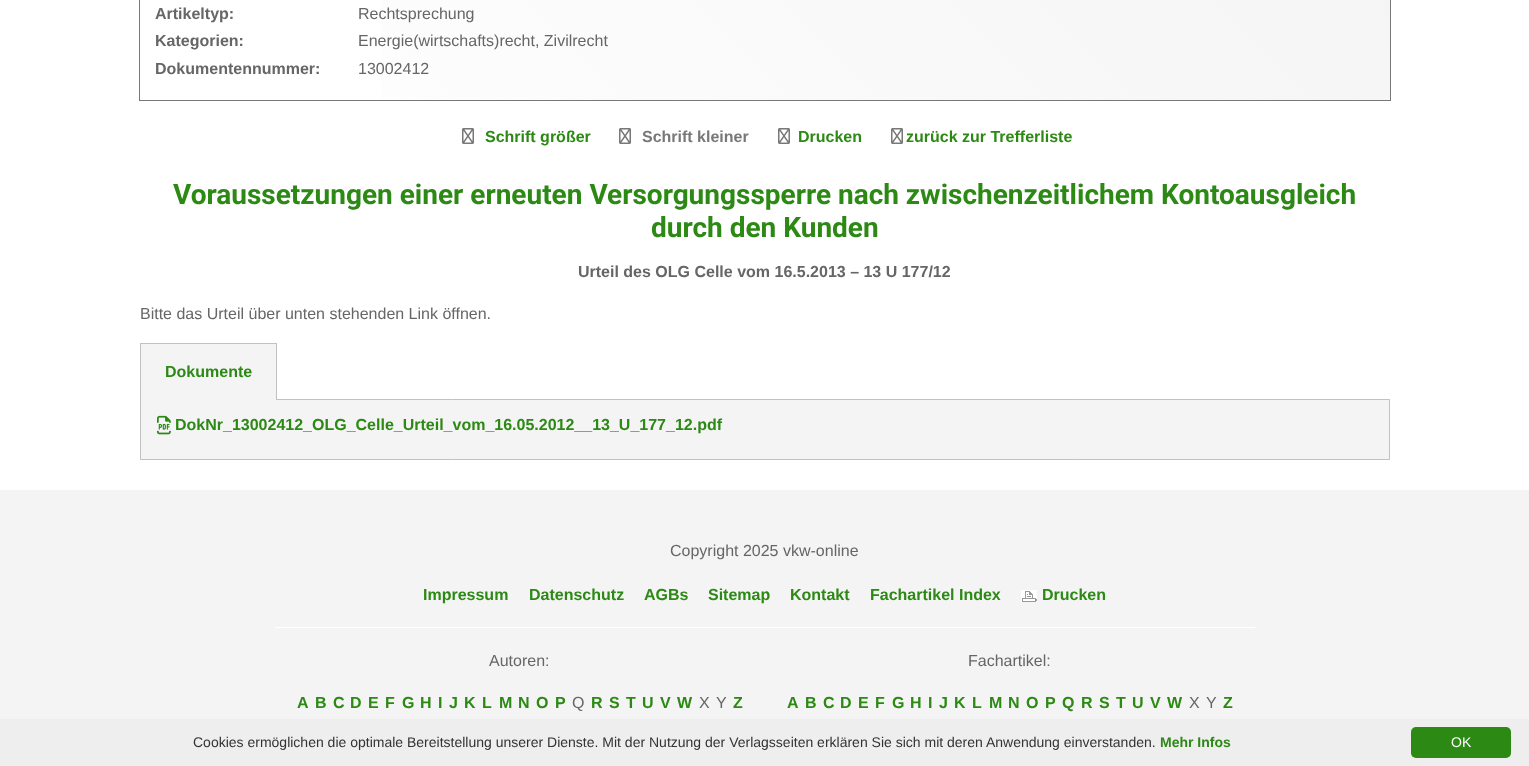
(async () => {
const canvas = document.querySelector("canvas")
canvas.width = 1529
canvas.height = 766
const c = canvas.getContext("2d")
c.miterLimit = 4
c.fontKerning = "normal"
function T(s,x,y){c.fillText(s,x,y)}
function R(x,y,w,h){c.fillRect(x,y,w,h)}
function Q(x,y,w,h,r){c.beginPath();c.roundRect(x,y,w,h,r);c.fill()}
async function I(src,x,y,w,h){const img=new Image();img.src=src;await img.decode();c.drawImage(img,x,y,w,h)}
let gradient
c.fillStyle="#fff"
R(0,0,1529,766)
gradient = c.createLinearGradient(390,350,1140,-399)
gradient.addColorStop(0,"#fff")
gradient.addColorStop(1,"#f4f4f4")
c.fillStyle = gradient
R(381,0,1009,100)
c.strokeStyle="#787878"
c.strokeRect(139.5,-.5,1251,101)
c.font="bold 16px Liberation Sans"
c.fillStyle="#666"
T("Artikeltyp:",155,19)
c.font="16px Liberation Sans"
T("Rechtsprechung",358,19)
c.font="bold 16px Liberation Sans"
T("Kategorien:",155,46)
c.font="16px Liberation Sans"
T("Energie(wirtschafts)recht, Zivilrecht",358,46)
c.font="bold 16px Liberation Sans"
T("Dokumentennummer:",155,74)
c.font="16px Liberation Sans"
T("13002412",358,74)
await I("1.png",462,128,12,16)
c.font="bold 16px Liberation Sans"
c.fillStyle="#2c8914"
T("Schrift größer",485,142)
await I("1.png",619,128,12,16)
c.fillStyle="#787878"
T("Schrift kleiner",642,142)
await I("1.png",778,128,12,16)
c.fillStyle="#2c8914"
T("Drucken",798,142)
await I("1.png",891,128,12,16)
T("zurück zur Trefferliste",906,142)
c.font="bold 28px Roboto"
T("Voraussetzungen einer erneuten Versorgungssperre nach zwischenzeitlichem Kontoausgleich",173,204)
T("durch den Kunden",651,237)
c.font="bold 16px Liberation Sans"
c.fillStyle="#666"
T("Urteil des OLG Celle vom 16.5.2013 – 13 U 177/12",578,277)
c.font="16px Liberation Sans"
T("Bitte das Urteil über unten stehenden Link öffnen.",140,319)
c.fillStyle="#c1c1c1"
R(140,343,137,1)
c.fillStyle="#f4f4f4"
c.beginPath()
c.rect(140.5,399.5,1249,60)
c.fill()
c.strokeStyle="#c1c1c1"
c.stroke()
c.fillStyle="#c1c1c1"
R(276,343,1,57)
R(140,343,1,57)
c.fillStyle="#f4f4f4"
R(141,344,135,56)
c.font="bold 16px Liberation Sans"
c.fillStyle="#2c8914"
T("Dokumente",165,377)
await I("2.png",157,415,14,20)
T("DokNr_13002412_OLG_Celle_Urteil_vom_16.05.2012__13_U_177_12.pdf",175,430)
c.fillStyle="#f4f4f4"
R(0,490,1529,229)
c.fillStyle="#fff"
R(275,627,980,1)
c.font="16px Liberation Sans"
c.fillStyle="#666"
T("Copyright 2025 vkw-online",670,556)
c.font="bold 16px Liberation Sans"
c.fillStyle="#2c8914"
T("Impressum",423,600)
T("Datenschutz",529,600)
T("AGBs",644,600)
T("Sitemap",708,600)
T("Kontakt",790,600)
T("Fachartikel Index",870,600)
await I("3.png",1021,590,16,12)
T("Drucken",1042,600)
c.font="16px Liberation Sans"
c.fillStyle="#666"
T("Autoren:",489,666)
c.font="bold 16px Liberation Sans"
c.fillStyle="#2c8914"
T("A",297,708)
T("B",315,708)
T("C",333,708)
T("D",350,708)
T("E",368,708)
T("F",385,708)
T("G",402,708)
T("H",420,708)
T("I",438,708)
T("J",449,708)
T("K",464,708)
T("L",482,708)
T("M",499,708)
T("N",518,708)
T("O",536,708)
T("P",555,708)
c.font="16px Liberation Sans"
c.fillStyle="#666"
T("Q",572,708)
c.font="bold 16px Liberation Sans"
c.fillStyle="#2c8914"
T("R",591,708)
T("S",609,708)
T("T",626,708)
T("U",642,708)
T("V",660,708)
T("W",677,708)
c.font="16px Liberation Sans"
c.fillStyle="#666"
T("X",699,708)
T("Y",716,708)
c.font="bold 16px Liberation Sans"
c.fillStyle="#2c8914"
T("Z",733,708)
c.font="16px Liberation Sans"
c.fillStyle="#666"
T("Fachartikel:",968,666)
c.font="bold 16px Liberation Sans"
c.fillStyle="#2c8914"
T("A",787,708)
T("B",805,708)
T("C",823,708)
T("D",840,708)
T("E",858,708)
T("F",875,708)
T("G",892,708)
T("H",910,708)
T("I",928,708)
T("J",939,708)
T("K",954,708)
T("L",972,708)
T("M",989,708)
T("N",1008,708)
T("O",1026,708)
T("P",1045,708)
T("Q",1062,708)
T("R",1081,708)
T("S",1099,708)
T("T",1116,708)
T("U",1132,708)
T("V",1150,708)
T("W",1167,708)
c.font="16px Liberation Sans"
c.fillStyle="#666"
T("X",1189,708)
T("Y",1206,708)
c.font="bold 16px Liberation Sans"
c.fillStyle="#2c8914"
T("Z",1223,708)
c.fillStyle="#eee"
R(0,719,1529,47)
c.font="14px Liberation Sans"
c.fillStyle="#333"
T("Cookies ermöglichen die optimale Bereitstellung unserer Dienste. Mit der Nutzung der Verlagsseiten erklären Sie sich mit deren Anwendung einverstanden.",193,747)
c.font="bold 14px Liberation Sans"
c.fillStyle="#2c8914"
T("Mehr Infos",1160,747)
Q(1411,727,100,31,5)
c.font="14px Liberation Sans"
c.fillStyle="#fff"
T("OK",1451,747)
})()
